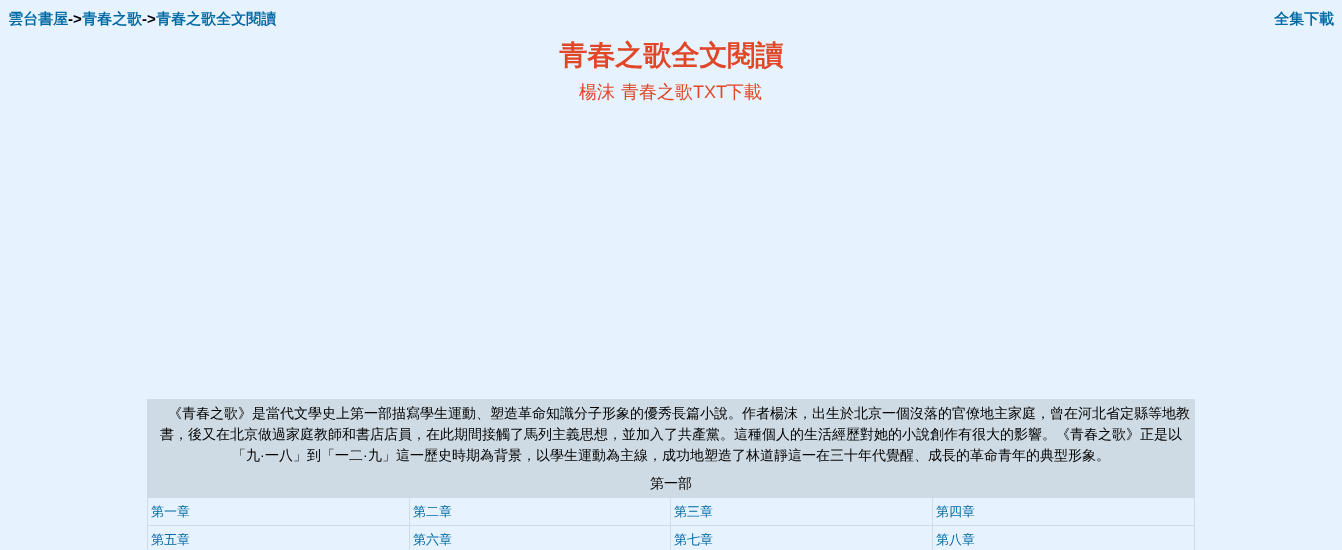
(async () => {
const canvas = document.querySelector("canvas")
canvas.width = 1342
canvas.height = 550
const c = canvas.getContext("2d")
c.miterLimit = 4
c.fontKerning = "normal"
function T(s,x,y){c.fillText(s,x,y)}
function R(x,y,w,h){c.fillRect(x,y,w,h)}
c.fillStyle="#e6f3ff"
R(0,0,1342,550)
c.font="bold 15px WenQuanYi Zen Hei"
c.fillStyle="#0069a2"
T("雲台書屋",8,24)
c.font="bold 15px Liberation Sans"
c.fillStyle="#000"
T("->",68,24)
c.font="bold 15px WenQuanYi Zen Hei"
c.fillStyle="#0069a2"
T("青春之歌",82,24)
c.font="bold 15px Liberation Sans"
c.fillStyle="#000"
T("->",142,24)
c.font="bold 15px WenQuanYi Zen Hei"
c.fillStyle="#0069a2"
T("青春之歌全文閱讀",156,24)
T("全集下載",1274,24)
c.font="bold 28px WenQuanYi Zen Hei"
c.fillStyle="#e14627"
T("青春之歌全文閱讀",559,65)
c.font="500 18px WenQuanYi Zen Hei"
T("楊沫",579,98)
T("青春之歌",621,98)
c.font="18px Liberation Sans"
T("TXT",693,98)
c.font="500 18px WenQuanYi Zen Hei"
T("下載",726,98)
c.fillStyle="#cfdbe9"
R(147,399,1048,151)
c.fillStyle="#cfdbe4"
R(148,400,1046,69)
c.font="500 14px WenQuanYi Zen Hei"
c.fillStyle="#000"
T("《青春之歌》是當代文學史上第一部描寫學生運動、塑造革命知識分子形象的優秀長篇小說。作者楊沫，出生於北京一個沒落的官僚地主家庭，曾在河北省定縣等地教",168,418)
T("書，後又在北京做過家庭教師和書店店員，在此期間接觸了馬列主義思想，並加入了共產黨。這種個人的生活經歷對她的小說創作有很大的影響。《青春之歌》正是以",160,439)
T("「九",232,460)
c.font="14px Liberation Sans"
T("·",260,460)
c.font="500 14px WenQuanYi Zen Hei"
T("一八」到「一二",265,460)
c.font="14px Liberation Sans"
T("·",363,460)
c.font="500 14px WenQuanYi Zen Hei"
T("九」這一歷史時期為背景，以學生運動為主線，成功地塑造了林道靜這一在三十年代覺醒、成長的革命青年的典型形象。",368,460)
c.fillStyle="#cfdbe4"
R(148,470,1046,27)
c.fillStyle="#000"
T("第一部",650,488)
c.fillStyle="#e6f3ff"
R(148,498,261,27)
c.font="500 13px WenQuanYi Zen Hei"
c.fillStyle="#0069a2"
T("第一章",151,516)
c.fillStyle="#e6f3ff"
R(410,498,260,27)
c.fillStyle="#0069a2"
T("第二章",413,516)
c.fillStyle="#e6f3ff"
R(671,498,261,27)
c.fillStyle="#0069a2"
T("第三章",674,516)
c.fillStyle="#e6f3ff"
R(933,498,261,27)
c.fillStyle="#0069a2"
T("第四章",936,516)
c.fillStyle="#e6f3ff"
R(148,526,261,24)
c.fillStyle="#0069a2"
T("第五章",151,544)
c.fillStyle="#e6f3ff"
R(410,526,260,24)
c.fillStyle="#0069a2"
T("第六章",413,544)
c.fillStyle="#e6f3ff"
R(671,526,261,24)
c.fillStyle="#0069a2"
T("第七章",674,544)
c.fillStyle="#e6f3ff"
R(933,526,261,24)
c.fillStyle="#0069a2"
T("第八章",936,544)
})()
